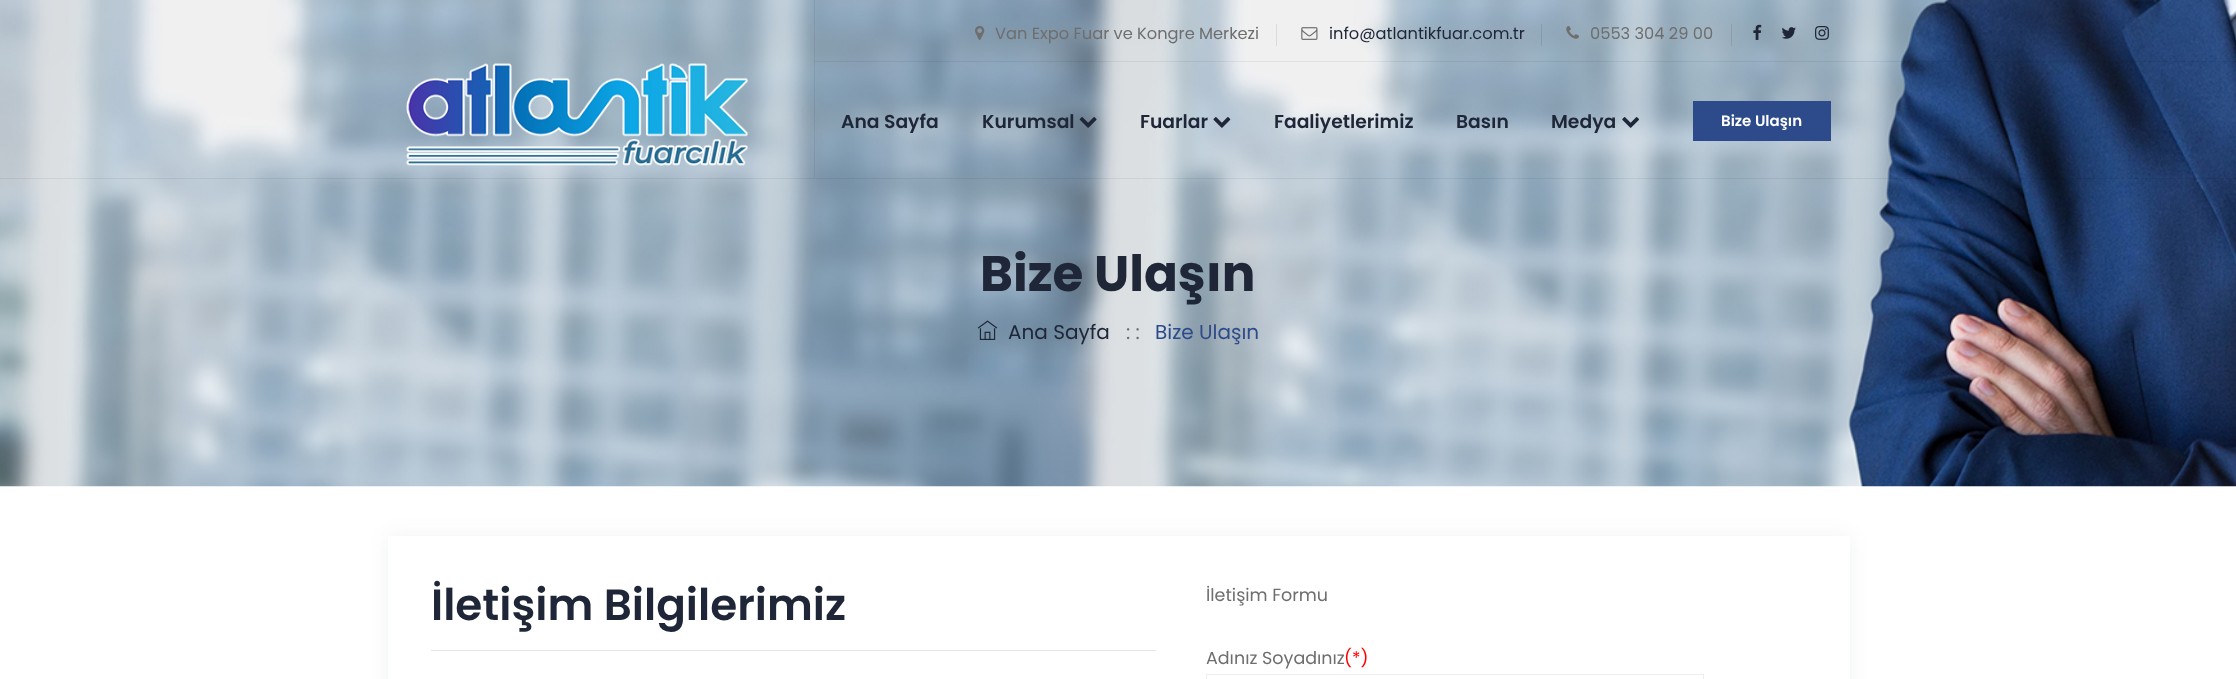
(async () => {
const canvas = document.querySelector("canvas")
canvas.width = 2236
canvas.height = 679
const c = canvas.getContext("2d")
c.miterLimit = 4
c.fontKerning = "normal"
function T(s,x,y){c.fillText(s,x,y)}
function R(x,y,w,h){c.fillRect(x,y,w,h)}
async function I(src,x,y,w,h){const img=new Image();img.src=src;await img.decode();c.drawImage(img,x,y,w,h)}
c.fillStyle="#fff"
R(0,0,2236,679)
await I("11.png",0,0,2236,487)
await I("1.png",406,63,342,103)
c.fillStyle="#0000000f"
R(814,0,1,178)
await I("2.png",975,26,10,14)
c.font="16.25px Poppins"
c.fillStyle="#6e6e6e"
T("Van Expo Fuar ve Kongre Merkezi",995,39)
c.fillStyle="#dadada"
R(1276,24,1,22)
await I("3.png",1301,27,17,13)
c.fillStyle="#1e2637"
T("info@atlantikfuar.com.tr",1329,39)
c.fillStyle="#00000017"
R(1541,24,1,22)
await I("4.png",1566,26,13,13)
c.fillStyle="#6e6e6e"
T("0553 304 29 00",1590,39)
c.fillStyle="#00000017"
R(1731,24,1,22)
await I("5.png",1753,24,9,16)
await I("6.png",1782,27,14,12)
await I("7.png",1815,26,14,14)
c.fillStyle="#0000000f"
R(815,61,1421,1)
c.font="600 18.75px Poppins"
c.fillStyle="#1e2637"
T("Ana Sayfa",841,128)
T("Kurumsal",982,128)
await I("8.png",1079,117,18,11)
T("Fuarlar",1140,128)
await I("9.png",1213,117,18,11)
T("Faaliyetlerimiz",1274,128)
T("Basın",1456,128)
T("Medya",1551,128)
await I("10.png",1622,117,17,11)
c.fillStyle="#2d4a8a"
R(1693,101,138,40)
c.font="600 15px Poppins"
c.fillStyle="#fff"
T("Bize Ulaşın",1721,126)
c.fillStyle="#0000000f"
R(0,178,2236,1)
c.font="bold 50px Poppins"
c.fillStyle="#1e2637"
T("Bize Ulaşın",980,291)
await I("12.png",977,320,21,20)
c.font="20px Poppins"
T("Ana Sayfa",1008,339)
c.fillStyle="#6e6e6e"
T(": :",1126,339)
c.fillStyle="#2d4a8a"
T("Bize Ulaşın",1155,339)
c.fillStyle="#283d5812"
c.filter="blur(9.5px)"
c.beginPath()
c.rect(388,536,1462,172)
c.fill()
c.filter="none"
c.fillStyle="#fff"
R(388,536,1462,143)
c.font="600 43.75px Poppins"
c.fillStyle="#1e2637"
T("İletişim Bilgilerimiz",431,620)
c.fillStyle="#e6e6e6"
R(431,650,725,1)
c.font="17.5px Poppins"
c.fillStyle="#6e6e6e"
T("İletişim Formu",1206,601)
T("Adınız Soyadınız",1206,664)
c.fillStyle="#f00"
T("(*)",1344,664)
c.strokeStyle="#ebeef2"
c.strokeRect(1206.5,674.5,497,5)
})()
